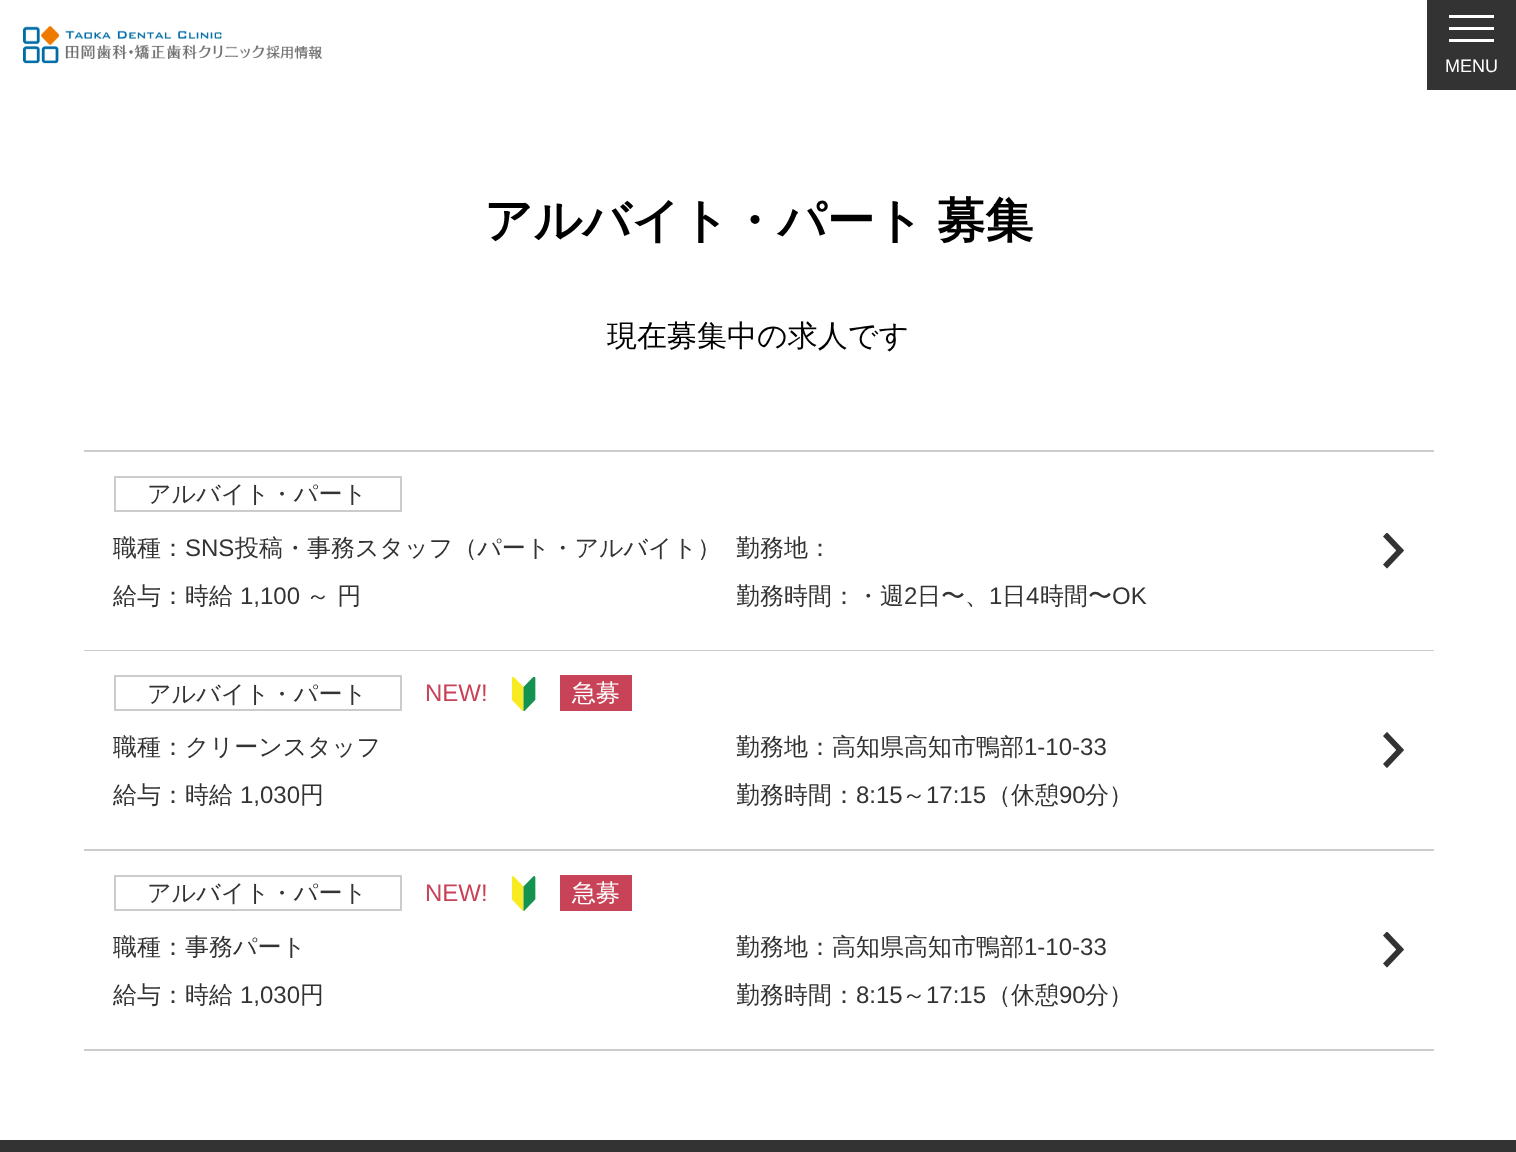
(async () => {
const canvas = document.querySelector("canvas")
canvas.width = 1516
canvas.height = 1152
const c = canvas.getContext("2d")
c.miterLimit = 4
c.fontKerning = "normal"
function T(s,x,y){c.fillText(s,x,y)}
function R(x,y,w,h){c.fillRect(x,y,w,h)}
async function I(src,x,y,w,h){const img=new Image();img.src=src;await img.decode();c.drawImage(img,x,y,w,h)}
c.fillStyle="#fff"
R(0,0,1516,1152)
await I("1.png",23,26,299,38)
c.fillStyle="#333"
R(1427,0,89,90)
c.fillStyle="#fff"
R(1449,15,45,3)
R(1449,27,45,3)
R(1449,39,45,3)
c.font="18px Liberation Sans"
T("MENU",1445,72)
c.wordSpacing="-1px"
c.font="bold 48px WenQuanYi Zen Hei"
c.fillStyle="#000"
T("アルバイト・パート 募集",484,237)
c.wordSpacing="0px"
c.font="500 30px WenQuanYi Zen Hei"
T("現在募集中の求人です",607,346)
await I("2.png",1383,533,21,36)
c.fillStyle="#ccc"
R(84,450,1350,2)
R(84,650,1350,1)
c.strokeStyle="#ccc"
c.lineWidth=2
c.strokeRect(115,477,286,34)
c.font="500 24px WenQuanYi Zen Hei"
c.fillStyle="#333"
T("アルバイト・パート",147,502)
T("職種：",113,556)
c.font="24px Liberation Sans"
T("SNS",185,556)
c.font="500 24px WenQuanYi Zen Hei"
T("投稿・事務スタッフ（パート・アルバイト）",235,556)
T("勤務地：",736,556)
T("給与：時給",113,604)
c.font="24px Liberation Sans"
T("1,100",240,604)
c.font="500 24px WenQuanYi Zen Hei"
T("～ 円",306,604)
c.save()
c.beginPath()
c.rect(737,578,622,36)
c.clip()
T("勤務時間",736,604)
c.restore()
T("：・週",832,604)
c.font="24px Liberation Sans"
T("2",904,604)
c.font="500 24px WenQuanYi Zen Hei"
T("日〜、",917,604)
c.font="24px Liberation Sans"
T("1",989,604)
c.font="500 24px WenQuanYi Zen Hei"
T("日",1002,604)
c.font="24px Liberation Sans"
T("4",1026,604)
c.font="500 24px WenQuanYi Zen Hei"
T("時間〜",1040,604)
c.font="24px Liberation Sans"
T("OK",1112,604)
await I("3.png",1383,732,21,36)
c.fillStyle="#ccc"
R(84,849,1350,2)
c.strokeRect(115,676,286,34)
c.font="500 24px WenQuanYi Zen Hei"
c.fillStyle="#333"
T("アルバイト・パート",147,702)
c.font="24px Liberation Sans"
c.fillStyle="#c94358"
T("NEW!",425,701)
await I("4.png",512,677,24,34)
R(560,675,72,36)
c.font="500 24px WenQuanYi Zen Hei"
c.fillStyle="#fff"
T("急募",572,701)
c.fillStyle="#333"
T("職種：クリーンスタッフ",113,755)
T("勤務地：高知県高知市鴨部",736,755)
c.font="24px Liberation Sans"
T("1-10-33",1024,755)
c.font="500 24px WenQuanYi Zen Hei"
T("給与：時給",113,803)
c.font="24px Liberation Sans"
T("1,030",240,803)
c.font="500 24px WenQuanYi Zen Hei"
T("円",300,803)
c.save()
c.beginPath()
c.rect(737,777,622,36)
c.clip()
T("勤務時間",736,803)
c.restore()
T("：",832,803)
c.font="24px Liberation Sans"
T("8:15",856,803)
c.font="500 24px WenQuanYi Zen Hei"
T("～",902,803)
c.font="24px Liberation Sans"
T("17:15",926,803)
c.font="500 24px WenQuanYi Zen Hei"
T("（休憩",987,803)
c.font="24px Liberation Sans"
T("90",1059,803)
c.font="500 24px WenQuanYi Zen Hei"
T("分）",1085,803)
await I("2.png",1383,932,21,36)
c.fillStyle="#ccc"
R(84,1049,1350,2)
c.strokeRect(115,876,286,34)
c.fillStyle="#333"
T("アルバイト・パート",147,901)
c.font="24px Liberation Sans"
c.fillStyle="#c94358"
T("NEW!",425,901)
await I("5.png",512,876,24,35)
R(560,875,72,36)
c.font="500 24px WenQuanYi Zen Hei"
c.fillStyle="#fff"
T("急募",572,901)
c.fillStyle="#333"
T("職種：事務パート",113,955)
T("勤務地：高知県高知市鴨部",736,955)
c.font="24px Liberation Sans"
T("1-10-33",1024,955)
c.font="500 24px WenQuanYi Zen Hei"
T("給与：時給",113,1003)
c.font="24px Liberation Sans"
T("1,030",240,1003)
c.font="500 24px WenQuanYi Zen Hei"
T("円",300,1003)
c.save()
c.beginPath()
c.rect(737,977,622,36)
c.clip()
T("勤務時間",736,1003)
c.restore()
T("：",832,1003)
c.font="24px Liberation Sans"
T("8:15",856,1003)
c.font="500 24px WenQuanYi Zen Hei"
T("～",902,1003)
c.font="24px Liberation Sans"
T("17:15",926,1003)
c.font="500 24px WenQuanYi Zen Hei"
T("（休憩",987,1003)
c.font="24px Liberation Sans"
T("90",1059,1003)
c.font="500 24px WenQuanYi Zen Hei"
T("分）",1085,1003)
R(0,1140,1516,12)
})()
